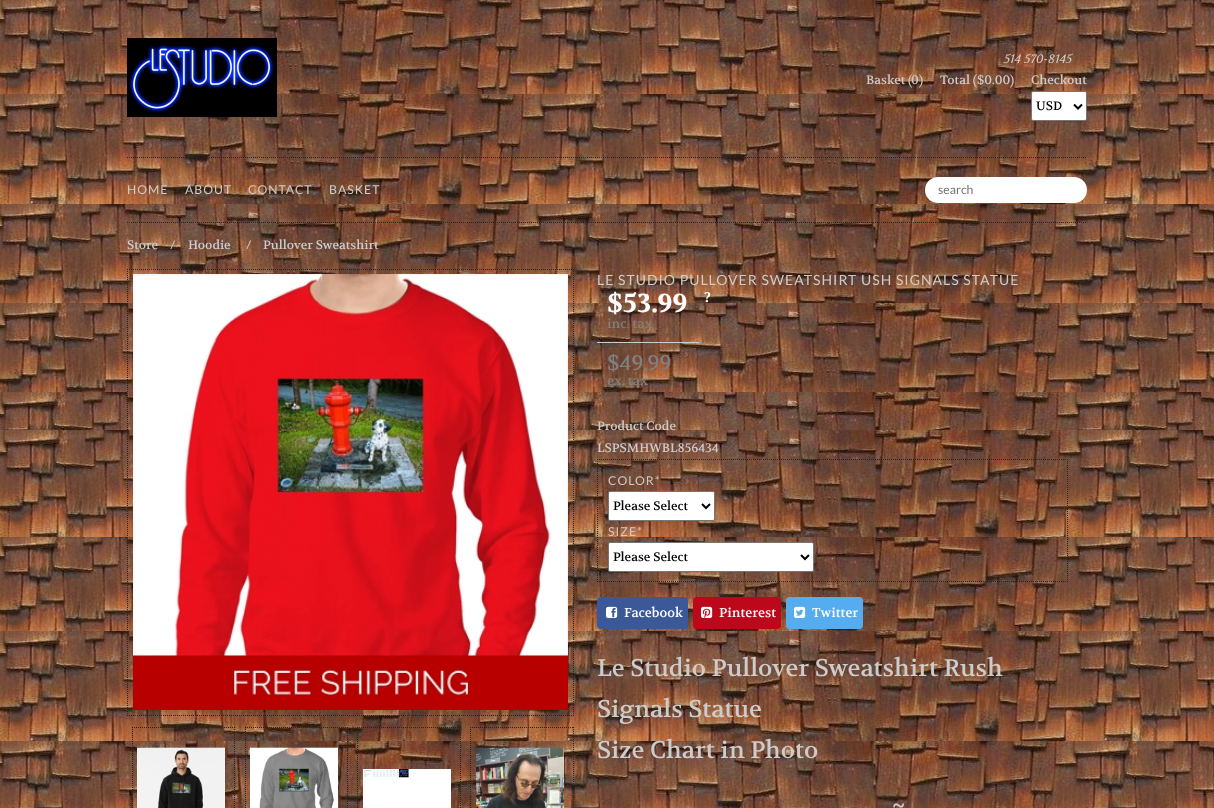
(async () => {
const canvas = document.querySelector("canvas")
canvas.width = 1214
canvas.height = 808
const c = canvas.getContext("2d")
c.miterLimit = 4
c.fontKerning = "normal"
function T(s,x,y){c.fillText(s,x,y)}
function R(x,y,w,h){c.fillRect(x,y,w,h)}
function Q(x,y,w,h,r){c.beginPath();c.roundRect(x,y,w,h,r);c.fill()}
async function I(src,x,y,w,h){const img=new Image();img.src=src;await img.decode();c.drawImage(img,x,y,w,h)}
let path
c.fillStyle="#fff"
R(0,0,1214,808)
await I("1.png",0,0,1214,808)
await I("2.png",127,38,150,79)
c.font="italic 12.25px Volkhov"
c.fillStyle="#ccc"
T("514 570-8145",1004,63)
c.font="12.25px Volkhov"
T("Basket (",866,84)
T("0",911,84)
T(")",919,84)
T("Total ($0.00",940,84)
T(")",1010,84)
T("Checkout",1031,84)
c.fillStyle="#fff"
c.beginPath()
c.roundRect(1031.5,91.5,55,29,1.5)
c.fill()
c.strokeStyle="#767676"
c.stroke()
path = new Path2D("M1074 104.5l4 4l4-4")
c.strokeStyle="#000"
c.lineWidth=2
c.stroke(path)
c.fillStyle="#000"
T("USD",1036,110)
path = new Path2D("M127 157.5h960")
c.strokeStyle="#262626"
c.lineWidth=1
c.setLineDash([1,1])
c.stroke(path)
path = new Path2D("M127 222.5h960")
c.stroke(path)
c.letterSpacing="1px"
c.font="12.25px Lato"
c.fillStyle="#ccc"
T("HOME",127,194)
T("ABOUT",185,194)
T("CONTACT",248,194)
T("BASKET",329,194)
c.fillStyle="#fff"
Q(925,177,162,26,13)
c.letterSpacing="0px"
c.fillStyle="#757575"
T("search",938,194)
c.font="12.25px Volkhov"
c.fillStyle="#ccc"
T("Store",127,249)
T("/",170,249)
T("Hoodie",188,249)
T("/",246,249)
T("Pullover Sweatshirt",263,249)
path = new Path2D("M127 269.5h447")
c.stroke(path)
path = new Path2D("M573.5 269v447")
c.stroke(path)
path = new Path2D("M127 715.5h447")
c.stroke(path)
path = new Path2D("M127.5 269v447")
c.stroke(path)
await I("3.png",133,274,435,436)
path = new Path2D("M132 727.5h103")
c.stroke(path)
path = new Path2D("M234.5 727v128")
c.stroke(path)
path = new Path2D("M132.5 727v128")
c.stroke(path)
await I("4.png",137,747,88,61)
path = new Path2D("M245 727.5h103")
c.stroke(path)
path = new Path2D("M347.5 727v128")
c.stroke(path)
path = new Path2D("M245.5 727v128")
c.stroke(path)
await I("5.png",250,747,88,61)
path = new Path2D("M357 727.5h104")
c.stroke(path)
path = new Path2D("M460.5 727v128")
c.stroke(path)
path = new Path2D("M357.5 727v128")
c.stroke(path)
await I("6.png",363,769,88,39)
path = new Path2D("M470 727.5h104")
c.stroke(path)
path = new Path2D("M573.5 727v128")
c.stroke(path)
path = new Path2D("M470.5 727v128")
c.stroke(path)
await I("7.png",476,747,88,61)
c.letterSpacing="1px"
c.font="14px Lato"
T("LE STUDIO PULLOVER SWEATSHIRT USH SIGNALS STATUE",597,285)
c.letterSpacing="0px"
c.font="bold 26px Volkhov"
c.fillStyle="#fff"
T("$53.99",607,312)
c.font="13px Volkhov"
c.fillStyle="#808080"
T("inc. tax",607,328)
c.font="bold 14px Volkhov"
c.fillStyle="#fff"
T("?",704,302)
c.fillStyle="#ccc"
R(597,342,102,1)
c.font="21px Volkhov"
c.fillStyle="#808080"
T("$49.99",607,370)
c.font="13px Volkhov"
T("ex. tax",607,385)
c.font="12.25px Volkhov"
c.fillStyle="#ccc"
T("Product Code",597,430)
T("LSPSMHWBL856434",597,452)
path = new Path2D("M597 459.5h471")
c.stroke(path)
path = new Path2D("M1067.5 459v123")
c.stroke(path)
path = new Path2D("M597 581.5h471")
c.stroke(path)
path = new Path2D("M597.5 459v123")
c.stroke(path)
c.letterSpacing="1px"
c.font="12.25px Lato"
T("COLOR*",608,485)
c.fillStyle="#fff"
c.beginPath()
c.roundRect(608.5,491.5,106,29,1.5)
c.fill()
c.strokeStyle="#767676"
c.setLineDash([])
c.stroke()
path = new Path2D("M702 504l4 4l4-4")
c.strokeStyle="#000"
c.lineWidth=2
c.stroke(path)
c.letterSpacing="0px"
c.font="12.25px Volkhov"
c.fillStyle="#000"
T("Please Select",613,510)
c.letterSpacing="1px"
c.font="12.25px Lato"
c.fillStyle="#ccc"
T("SIZE*",608,536)
c.fillStyle="#fff"
c.beginPath()
c.roundRect(608.5,542.5,205,29,1.5)
c.fill()
c.strokeStyle="#767676"
c.lineWidth=1
c.stroke()
path = new Path2D("M801 555l4 4l4-4")
c.strokeStyle="#000"
c.lineWidth=2
c.stroke(path)
c.letterSpacing="0px"
c.font="12.25px Volkhov"
c.fillStyle="#000"
T("Please Select",613,561)
c.fillStyle="#3b5998"
Q(597,597,91,32,4)
await I("8.png",606,606,12,12)
c.font="13px Volkhov"
c.fillStyle="#fff"
T("Facebook",624,617)
c.fillStyle="#bd081c"
Q(693,597,88,32,4)
await I("9.png",701,606,12,12)
c.fillStyle="#fff"
T("Pinterest",719,617)
c.fillStyle="#55acee"
Q(786,597,77,32,4)
await I("10.png",794,606,12,12)
c.fillStyle="#fff"
T("Twitter",812,617)
c.font="24px Volkhov"
c.fillStyle="#ccc"
T("Le Studio Pullover Sweatshirt Rush",597,676)
T("Signals Statue",597,717)
T("Size Chart in Photo",597,758)
T("~",892,814)
})()
